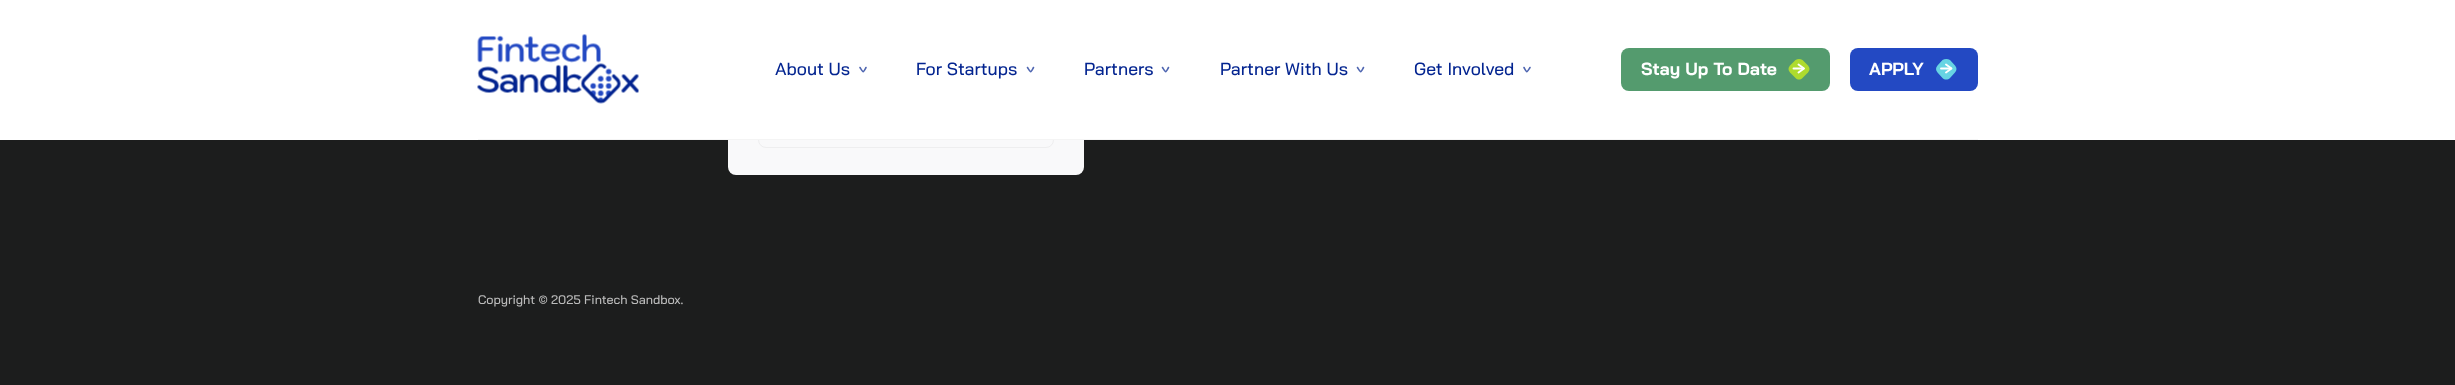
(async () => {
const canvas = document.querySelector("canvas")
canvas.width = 2455
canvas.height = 385
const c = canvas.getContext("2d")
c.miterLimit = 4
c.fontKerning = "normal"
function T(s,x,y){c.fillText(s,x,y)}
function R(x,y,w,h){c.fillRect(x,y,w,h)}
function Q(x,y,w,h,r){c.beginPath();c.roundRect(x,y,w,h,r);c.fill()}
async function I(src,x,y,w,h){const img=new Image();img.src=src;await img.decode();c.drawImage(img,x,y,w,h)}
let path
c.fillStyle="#1c1d1d"
R(0,0,2455,385)
c.fillStyle="#f9f9fa"
Q(728,-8,356,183,8)
c.beginPath()
c.roundRect(758.5,91.5,295,56,7.5)
c.strokeStyle="#eeeeef"
c.stroke()
c.fillStyle="#fff"
R(0,0,2455,140)
c.fillStyle="#f4f4f4"
R(478,139,1500,1)
await I("1.png",477,34,162,70)
c.font="500 17.5px Bai Jamjuree"
c.fillStyle="#032490"
T("About Us",775,75)
path = new Path2D("M860 67.5c3.5 5.5 3 5.5 6 0")
c.strokeStyle="#4f66b1"
c.lineWidth=1.6
c.lineCap="round"
c.lineJoin="round"
c.stroke(path)
T("For Startups",916,75)
path = new Path2D("M1027.5 67.5c3.5 5.5 3 5.5 6 0")
c.stroke(path)
T("Partners",1084,75)
path = new Path2D("M1162.5 67.5c3.5 5.5 3 5.5 6 0")
c.stroke(path)
T("Partner With Us",1220,75)
path = new Path2D("M1357.5 67.5c3.5 5.5 3 5.5 6 0")
c.stroke(path)
T("Get Involved",1414,75)
path = new Path2D("M1524 67.5c3 5.5 2.5 5.5 6 0")
c.stroke(path)
c.fillStyle="#549b6e"
Q(1621,48,209,43,8)
c.font="bold 17.5px Bai Jamjuree"
c.fillStyle="#fff"
T("Stay Up To Date",1641,75)
c.fillStyle="#aedb2e"
path = new Path2D("M1802.5 60l5.5 5.5c2 2 2 5 0 7l-5.5 5.5c-2 2-5 2-7 0l-5.5-5.5c-2-2-2-5 0-7l5.5-5.5c2-1.5 5-1.5 7 0z")
c.fill(path)
path = new Path2D("M1798.5 64.5l5.5 4l-5.5 4")
c.strokeStyle="#fff"
c.lineWidth=1.9
c.stroke(path)
path = new Path2D("M1793.5 68.5h10")
c.lineJoin="miter"
c.stroke(path)
c.fillStyle="#2349c3"
Q(1850,48,128,43,8)
c.fillStyle="#fff"
T("APPLY",1869,75)
c.fillStyle="#67d4e3"
path = new Path2D("M1950 60l5 5.5c2 2 2 5 0 7l-5 5.5c-2 2-5.5 2-7.5 0l-5-5.5c-2-2-2-5 0-7l5-5.5c2-1.5 5.5-1.5 7.5 0z")
c.fill(path)
path = new Path2D("M1946 64.5l5.5 4l-5.5 4")
c.lineJoin="round"
c.stroke(path)
path = new Path2D("M1941 68.5h10")
c.lineJoin="miter"
c.stroke(path)
c.letterSpacing="-0.05px"
c.font="500 12.5px Bai Jamjuree"
c.fillStyle="#bbb"
T("Copyright © 2025 Fintech Sandbox.",478,304)
})()
